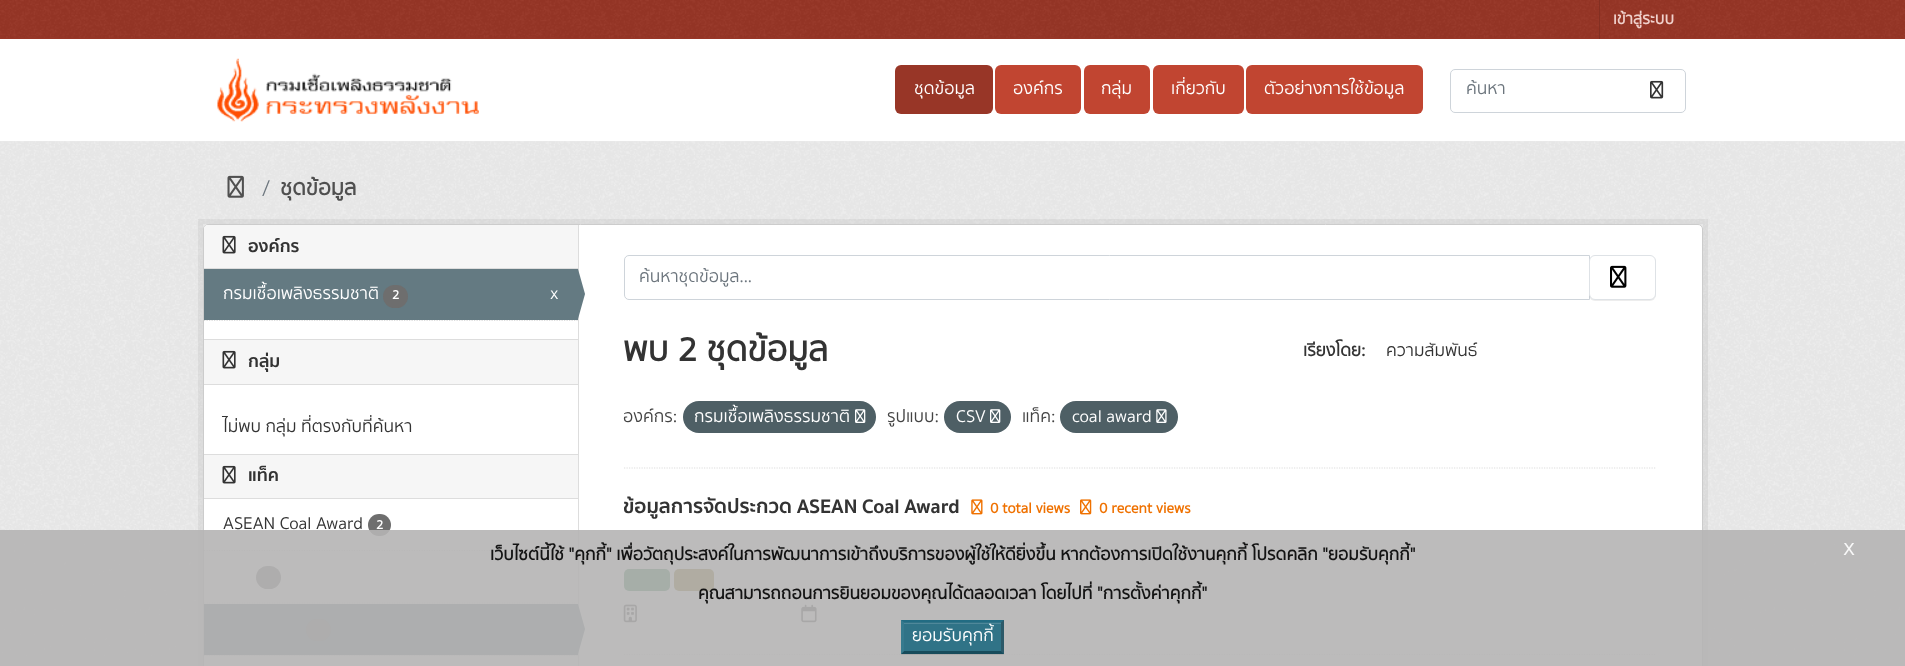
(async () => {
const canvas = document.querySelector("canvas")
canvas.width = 1905
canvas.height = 666
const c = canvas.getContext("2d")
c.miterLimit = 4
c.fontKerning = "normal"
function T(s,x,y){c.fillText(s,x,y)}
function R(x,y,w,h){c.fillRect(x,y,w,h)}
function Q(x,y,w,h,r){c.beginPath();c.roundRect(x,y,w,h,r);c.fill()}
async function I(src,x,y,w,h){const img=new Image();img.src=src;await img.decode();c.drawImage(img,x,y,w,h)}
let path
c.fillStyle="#fff"
R(0,0,1905,666)
c.fillStyle="#983627"
R(0,0,1905,39)
await I("1.png",0,0,1905,38)
c.fillStyle="#842f22"
R(1599,0,1,39)
c.font="bold 16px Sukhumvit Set"
c.fillStyle="#f0d1cc"
T("เข้าสู่ระบบ",1613,24)
await I("2.png",217,58,262,64)
c.fillStyle="#983627"
Q(895,65,98,49,6)
c.font="17.5px Sukhumvit Set"
c.fillStyle="#fff"
T("ชุดข้อมูล",914,94)
c.fillStyle="#c14531"
Q(995,65,86,49,6)
c.fillStyle="#fff"
T("องค์กร",1013,94)
c.fillStyle="#c14531"
Q(1084,65,66,49,6)
c.fillStyle="#fff"
T("กลุ่ม",1101,94)
c.fillStyle="#c14531"
Q(1153,65,91,49,6)
c.fillStyle="#fff"
T("เกี่ยวกับ",1171,94)
c.fillStyle="#c14531"
Q(1246,65,177,49,6)
c.fillStyle="#fff"
T("ตัวอย่างการใช้ข้อมูล",1264,94)
c.beginPath()
c.roundRect(1450.5,69.5,235,43,4.5)
c.strokeStyle="#ced4da"
c.stroke()
c.save()
c.beginPath()
c.rect(1466,78,204,25)
c.clip()
c.fillStyle="#6c757d"
T("ค้นหา",1466,94)
c.restore()
await I("3.png",1650,80,14,19)
c.fillStyle="#eee"
R(0,141,1905,525)
await I("4.png",0,141,1905,525)
await I("5.png",227,175,17,23)
c.font="22px Sukhumvit Set"
c.fillStyle="#6c757d"
T("/",262,195)
c.font="bold 22px Sukhumvit Set"
c.fillStyle="#505050"
T("ชุดข้อมูล",280,195)
c.strokeStyle="#0000000d"
c.lineWidth=5
c.strokeRect(200.5,221.5,1505,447)
c.fillStyle="#fff"
c.beginPath()
c.roundRect(203.5,224.5,1499,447,4.5)
c.fill()
c.strokeStyle="#ccc"
c.lineWidth=1
c.stroke()
c.fillStyle="#f6f6f6"
c.beginPath()
c.roundRect(204,225,374,44,[4,0,0,0])
c.fill()
c.fillStyle="#ddd"
R(204,268,374,1)
await I("6.png",222,235,14,19)
c.font="bold 17.5px 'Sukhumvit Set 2'"
c.fillStyle="#333"
T("องค์กร",248,252)
path = new Path2D("M204 320.5h373.5")
c.strokeStyle="#ddd"
c.lineWidth=1.2
c.setLineDash([1.25,1.25])
c.stroke(path)
c.fillStyle="#647a82"
R(204,269,374,51)
c.font="17.5px Sukhumvit Set"
c.fillStyle="#fff"
T("กรมเชื้อเพลิงธรรมชาติ",223,299)
c.fillStyle="#6e6e6e"
Q(383,285,25,23,11.5)
c.font="bold 13px Sukhumvit Set"
c.fillStyle="#fff"
T("2",392,299)
c.font="17.5px Sukhumvit Set"
T("x",550,299)
c.fillStyle="#ddd"
R(578,225,1,441)
c.fillStyle="#647a82"
path = new Path2D("M578 319v-50l7 25z")
c.fill(path)
c.fillStyle="#f6f6f6"
R(204,340,374,44)
c.fillStyle="#ddd"
R(204,339,374,1)
R(204,384,374,1)
await I("6.png",222,350,14,19)
c.font="bold 17.5px 'Sukhumvit Set 2'"
c.fillStyle="#333"
T("กลุ่ม",248,367)
c.font="17.5px Sukhumvit Set"
T("ไม่พบ กลุ่ม ที่ตรงกับที่ค้นหา",223,432)
c.fillStyle="#f6f6f6"
R(204,455,374,43)
c.fillStyle="#ddd"
R(204,454,374,1)
R(204,498,374,1)
await I("6.png",222,465,14,19)
c.font="bold 17.5px 'Sukhumvit Set 2'"
c.fillStyle="#333"
T("แท็ค",248,481)
path = new Path2D("M204 550.5h373.5")
c.stroke(path)
c.font="17.5px Sukhumvit Set"
T("ASEAN Coal Award",223,529)
c.fillStyle="#6e6e6e"
Q(368,514,23,22,11)
c.font="bold 13px Sukhumvit Set"
c.fillStyle="#fff"
T("2",376,529)
path = new Path2D("M204 603h373.5")
c.stroke(path)
c.fillStyle="#6e6e6e"
Q(256,566,25,23,11.5)
c.fillStyle="#f6f6f6"
R(205,655,373,1)
path = new Path2D("M204 655.5h373.5")
c.stroke(path)
c.fillStyle="#647a82"
R(204,604,374,51)
c.fillStyle="#6e6e6e"
Q(306,619,25,22,11)
c.fillStyle="#647a82"
path = new Path2D("M578 654v-50l7 25z")
c.fill(path)
path = new Path2D("M624 468h1032")
c.stroke(path)
c.beginPath()
c.roundRect(624.5,255.5,965,44,[4.5,0,0,4.5])
c.strokeStyle="#ced4da"
c.lineWidth=1
c.setLineDash([])
c.stroke()
c.save()
c.beginPath()
c.rect(640,265,934,25)
c.clip()
c.font="17.5px Sukhumvit Set"
c.fillStyle="#6c757d"
T("ค้นหาชุดข้อมูล...",639,282)
c.restore()
c.fillStyle="#00000012"
c.filter="blur(0.5px)"
c.beginPath()
c.roundRect(1589,256,67,45,6)
c.fill()
c.filter="none"
c.fillStyle="#fff"
c.beginPath()
c.roundRect(1589.5,255.5,66,44,5.5)
c.fill()
c.strokeStyle="#dee2e6"
c.stroke()
await I("7.png",1610,265,17,23)
c.font="bold 35px Sukhumvit Set"
c.fillStyle="#333"
T("พบ 2 ชุดข้อมูล",623,361)
c.font="bold 17.5px Sukhumvit Set"
T("เรียงโดย:",1303,356)
c.font="17.5px Sukhumvit Set"
T("ความสัมพันธ์",1386,356)
c.fillStyle="#444"
T("องค์กร:",623,422)
c.fillStyle="#4e5f65"
Q(683,401,193,32,16)
c.fillStyle="#fff"
T("กรมเชื้อเพลิงธรรมชาติ",694,422)
await I("8.png",855,409,11,14)
c.fillStyle="#444"
T("รูปแบบ:",887,422)
c.fillStyle="#4e5f65"
Q(944,401,67,32,16)
c.fillStyle="#fff"
T("CSV",956,422)
await I("8.png",990,409,11,14)
c.fillStyle="#444"
T("แท็ค:",1022,422)
c.fillStyle="#4e5f65"
Q(1060,401,118,32,16)
c.fillStyle="#fff"
T("coal award",1072,422)
await I("9.png",1156,409,11,14)
path = new Path2D("M624 654.5h1032")
c.strokeStyle="#ddd"
c.lineWidth=1.2
c.setLineDash([1.25,1.25])
c.stroke(path)
c.font="bold 20px 'Sukhumvit Set 2'"
c.fillStyle="#333"
T("ข้อมูลการจัดประกวด ASEAN Coal Award",623,513)
await I("10.png",971,499,12,16)
c.font="bold 15px Sukhumvit Set"
c.fillStyle="#ef7100"
T("0 total views",990,513)
await I("11.png",1080,499,12,16)
T("0 recent views",1099,513)
c.fillStyle="#207e42"
Q(624,569,46,22,5)
c.fillStyle="#856a00"
Q(674,569,40,22,5)
await I("12.png",623,604,14,19)
await I("13.png",801,604,16,19)
c.fillStyle="#b5b4b4e6"
R(0,530,1905,136)
c.font="bold 17.5px Sukhumvit Set"
c.fillStyle="#131313"
T("เว็บไซต์นี้ใช้ \"คุกกี้\" เพื่อวัตถุประสงค์ในการพัฒนาการเข้าถึงบริการของผู้ใช้ให้ดียิ่งขึ้น หากต้องการเปิดใช้งานคุกกี้ โปรดคลิก \"ยอมรับคุกกี้\"",490,560)
c.font="25px Sukhumvit Set"
c.fillStyle="#f8f8f8"
T("x",1843,555)
c.font="bold 17.5px Sukhumvit Set"
c.fillStyle="#131313"
T("คุณสามารถถอนการยินยอมของคุณได้ตลอดเวลา โดยไปที่ \"การตั้งค่าคุกกี้\"",698,599)
c.save()
path = new Path2D("M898 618h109v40h-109zm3 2h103v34h-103z")
c.clip(path,"evenodd")
c.fillStyle="#00000012"
c.filter="blur(0.5px)"
c.beginPath()
c.rect(901,621,103,34)
c.fill()
c.filter="none"
c.restore()
c.fillStyle="#206b82e6"
R(901,620,103,34)
c.fillStyle="#4f889a"
R(904,623,97,1)
c.fillStyle="#226c83"
path = new Path2D("M901 620h103l-3 2h-97z")
c.fill(path)
c.fillStyle="#2c5968"
path = new Path2D("M1004 620v34l-3-3v-28.5z")
c.fill(path)
c.fillStyle="#154757e6"
path = new Path2D("M1004 654h-103l3-3h97z")
c.fill(path)
c.fillStyle="#367a8e"
path = new Path2D("M901 654v-34l3 2.5v28.5z")
c.fill(path)
c.font="17.5px Sukhumvit Set"
c.fillStyle="#fff"
T("ยอมรับคุกกี้",912,641)
})()
